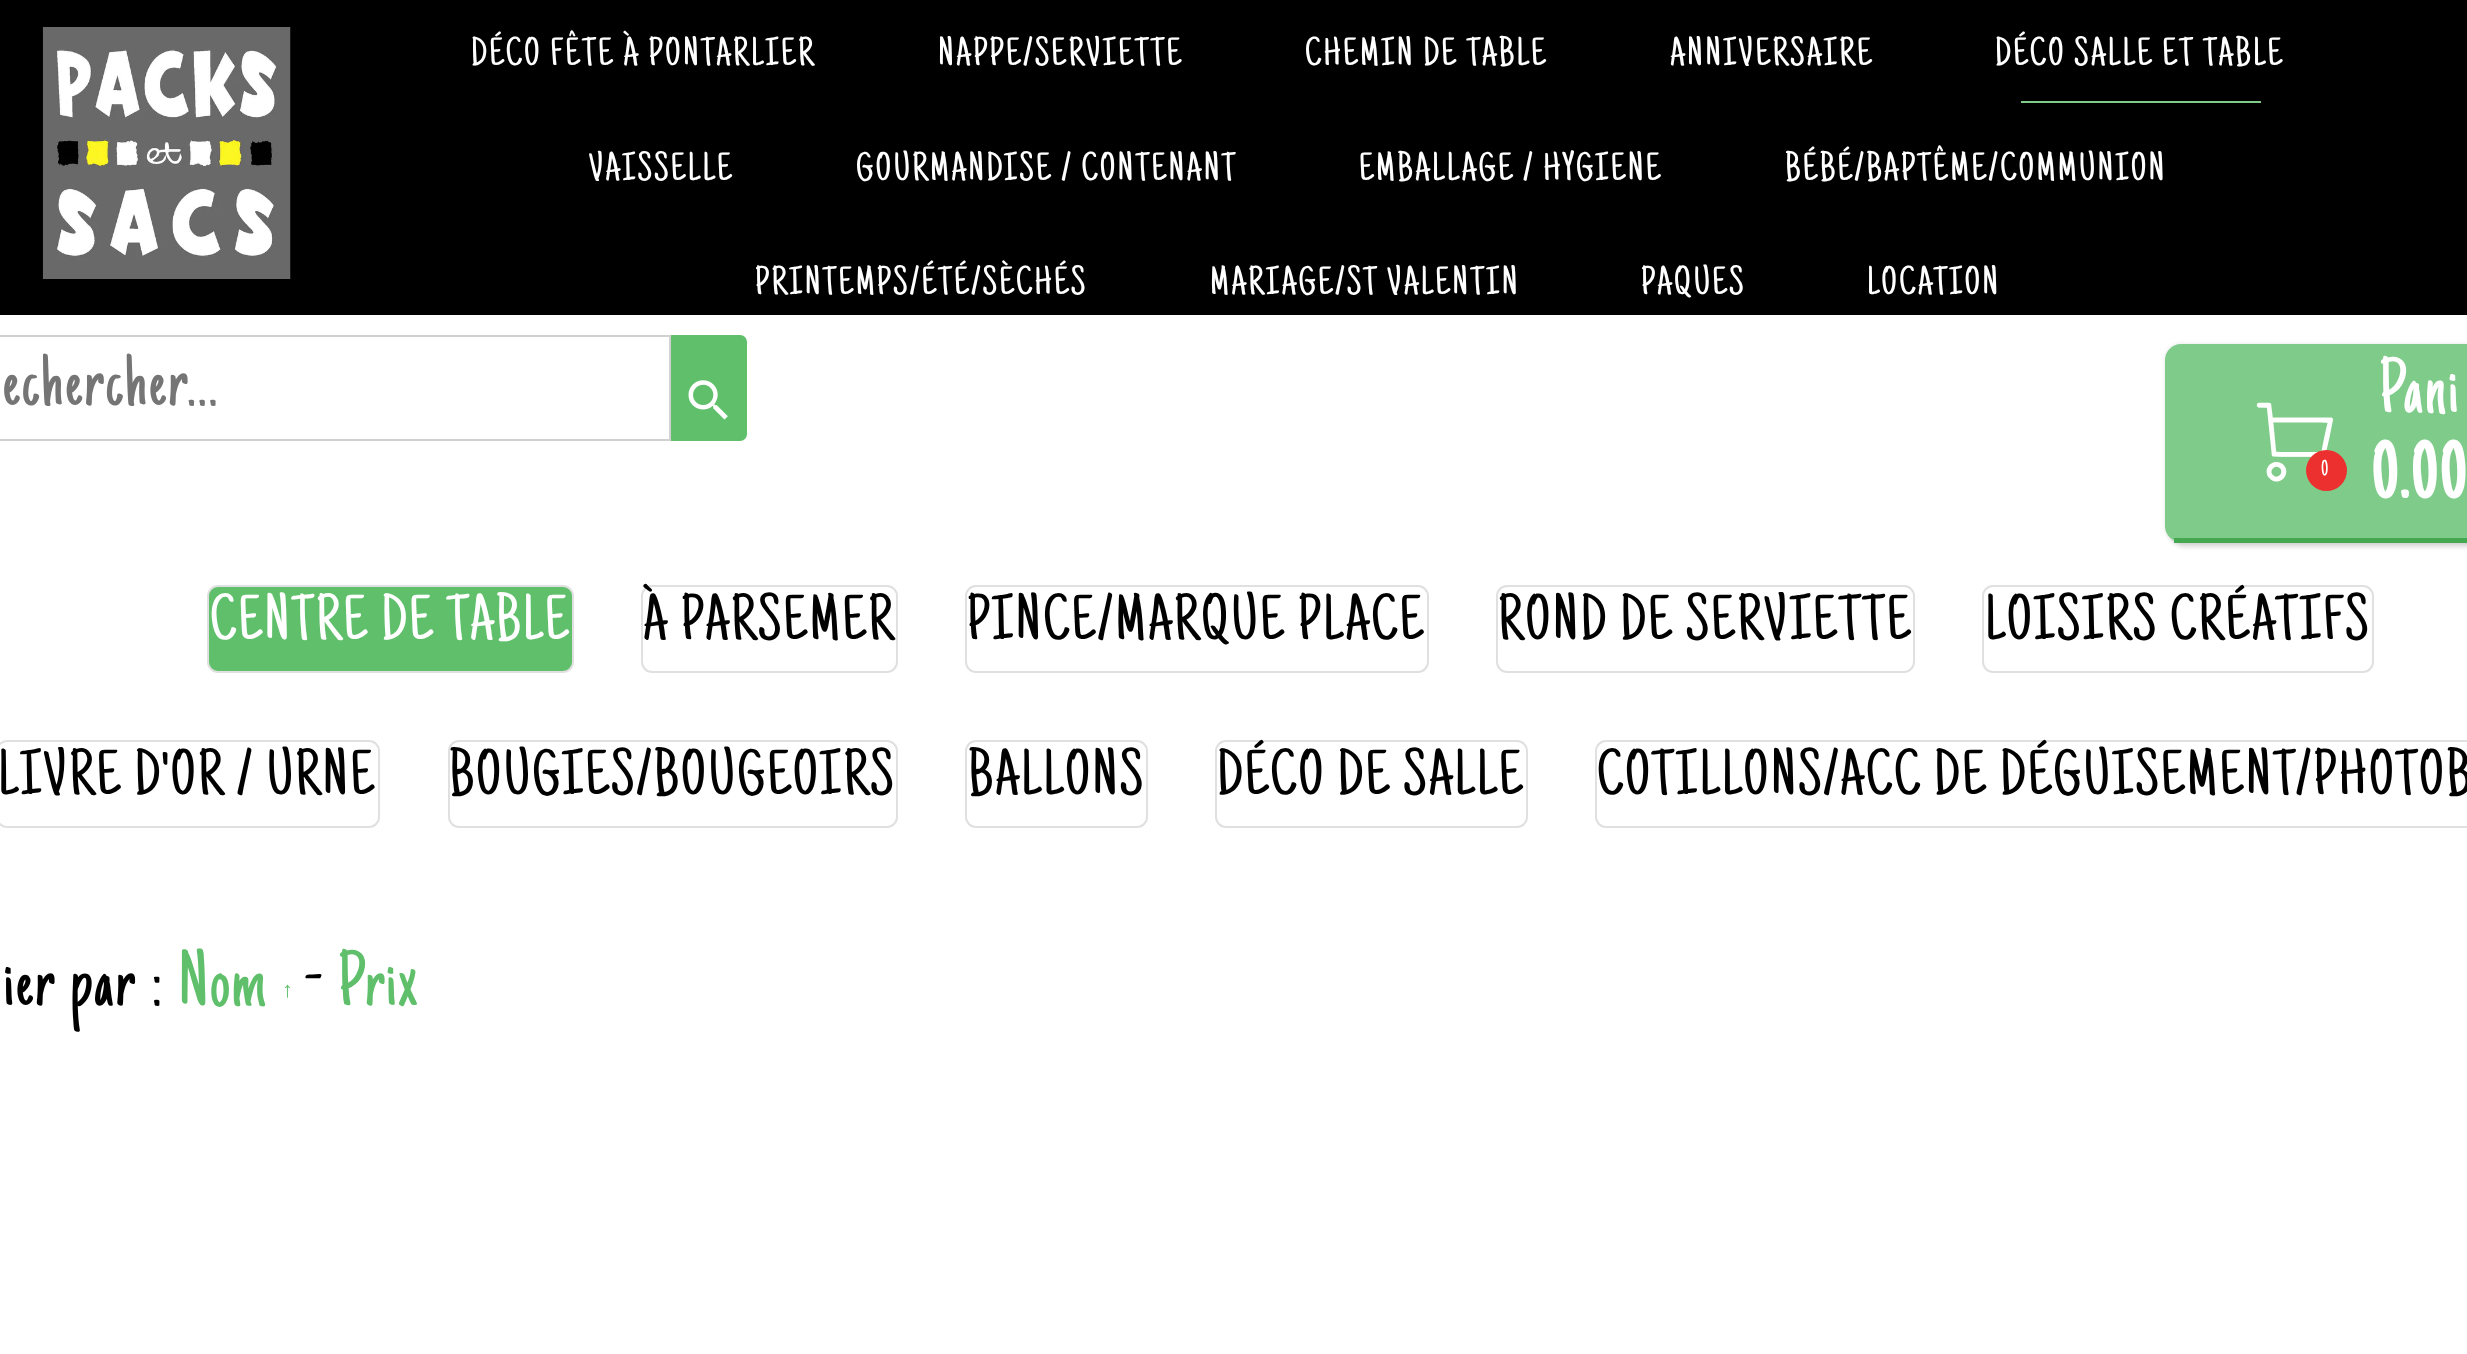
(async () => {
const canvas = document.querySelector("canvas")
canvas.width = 2467
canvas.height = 1354
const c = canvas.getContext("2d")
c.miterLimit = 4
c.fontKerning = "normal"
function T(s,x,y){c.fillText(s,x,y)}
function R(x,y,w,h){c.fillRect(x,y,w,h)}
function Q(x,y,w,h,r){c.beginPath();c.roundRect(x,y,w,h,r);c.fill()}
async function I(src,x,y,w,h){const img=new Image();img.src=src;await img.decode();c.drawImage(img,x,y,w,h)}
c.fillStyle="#fff"
R(0,0,2467,1354)
c.fillStyle="#000"
R(0,0,2467,315)
await I("1.png",42,27,249,252)
c.letterSpacing="2.35px"
c.font="40.5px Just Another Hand"
c.fillStyle="#fff"
T("DÉCO FÊTE À PONTARLIER",471,65)
T("NAPPE/SERVIETTE",938,65)
T("CHEMIN DE TABLE",1305,65)
T("ANNIVERSAIRE",1670,65)
T("DÉCO SALLE ET TABLE",1995,65)
c.fillStyle="#7fcc8a"
R(2021,101,240,2)
c.fillStyle="#fff"
T("VAISSELLE",589,180)
T("GOURMANDISE / CONTENANT",856,180)
T("EMBALLAGE / HYGIENE",1359,180)
T("BÉBÉ/BAPTÊME/COMMUNION",1785,180)
T("PRINTEMPS/ÉTÉ/SÈCHÉS",755,294)
T("MARIAGE/ST VALENTIN",1210,294)
T("PAQUES",1641,294)
T("LOCATION",1867,294)
c.strokeStyle="#d1d1d1"
c.lineWidth=2
c.strokeRect(-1,336,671,104)
c.font="79px Just Another Hand"
c.fillStyle="#757575"
T("echercher...",3,405)
c.fillStyle="#5fbf6b"
c.beginPath()
c.roundRect(671,335,76,106,[0,7,7,0])
c.fill()
await I("2.png",688,380,40,40)
c.fillStyle="#00000026"
c.filter="blur(2px)"
c.beginPath()
c.roundRect(2169,349,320,198,16)
c.fill()
c.filter="none"
c.fillStyle="#0000001a"
c.filter="blur(2px)"
c.beginPath()
c.roundRect(2165,344,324,198,16)
c.fill()
c.filter="none"
c.fillStyle="#7fcc8a"
Q(2165,344,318,198,16)
c.fillStyle="#43a850"
R(2174,538,293,5)
await I("3.png",2256,402,77,80)
c.fillStyle="#ec2f2f"
c.beginPath()
c.arc(2326.5,470.5,20.5,0,7)
c.fill()
c.font="22px Just Another Hand"
c.fillStyle="#fff"
T("0",2321,475)
c.font="79px Just Another Hand"
T("Pani",2379,412)
c.font="bold 79px Just Another Hand"
T("0.00",2371,497)
c.fillStyle="#5fbf6b"
c.beginPath()
c.roundRect(208,586,365,86,10)
c.fill()
c.strokeStyle="#e0e0e0"
c.stroke()
c.font="65.25px Just Another Hand"
c.fillStyle="#fff"
T("CENTRE DE TABLE",210,639)
c.beginPath()
c.roundRect(642,586,255,86,10)
c.stroke()
c.fillStyle="#000"
T("À PARSEMER",643,639)
c.beginPath()
c.roundRect(966,586,462,86,10)
c.stroke()
T("PINCE/MARQUE PLACE",967,639)
c.beginPath()
c.roundRect(1497,586,417,86,10)
c.stroke()
T("ROND DE SERVIETTE",1498,639)
c.beginPath()
c.roundRect(1983,586,390,86,10)
c.stroke()
T("LOISIRS CRÉATIFS",1985,639)
c.beginPath()
c.roundRect(-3,741,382,86,10)
c.stroke()
T("LIVRE D'OR / URNE",-2,794)
c.beginPath()
c.roundRect(449,741,448,86,10)
c.stroke()
T("BOUGIES/BOUGEOIRS",449,794)
c.beginPath()
c.roundRect(966,741,181,86,10)
c.stroke()
T("BALLONS",968,794)
c.beginPath()
c.roundRect(1216,741,311,86,10)
c.stroke()
T("DÉCO DE SALLE",1217,794)
c.beginPath()
c.roundRect(1596,741,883,86,10)
c.stroke()
T("COTILLONS/ACC DE DÉGUISEMENT/PHOTOB",1597,794)
c.font="79px Just Another Hand"
T("ier par :",4,1005)
c.fillStyle="#5fbf6b"
T("Nom",178,1005)
c.font="22px Liberation Serif"
T("↑",282,997)
c.font="79px Just Another Hand"
c.fillStyle="#000"
T("-",305,1005)
c.fillStyle="#5fbf6b"
T("Prix",338,1005)
})()
